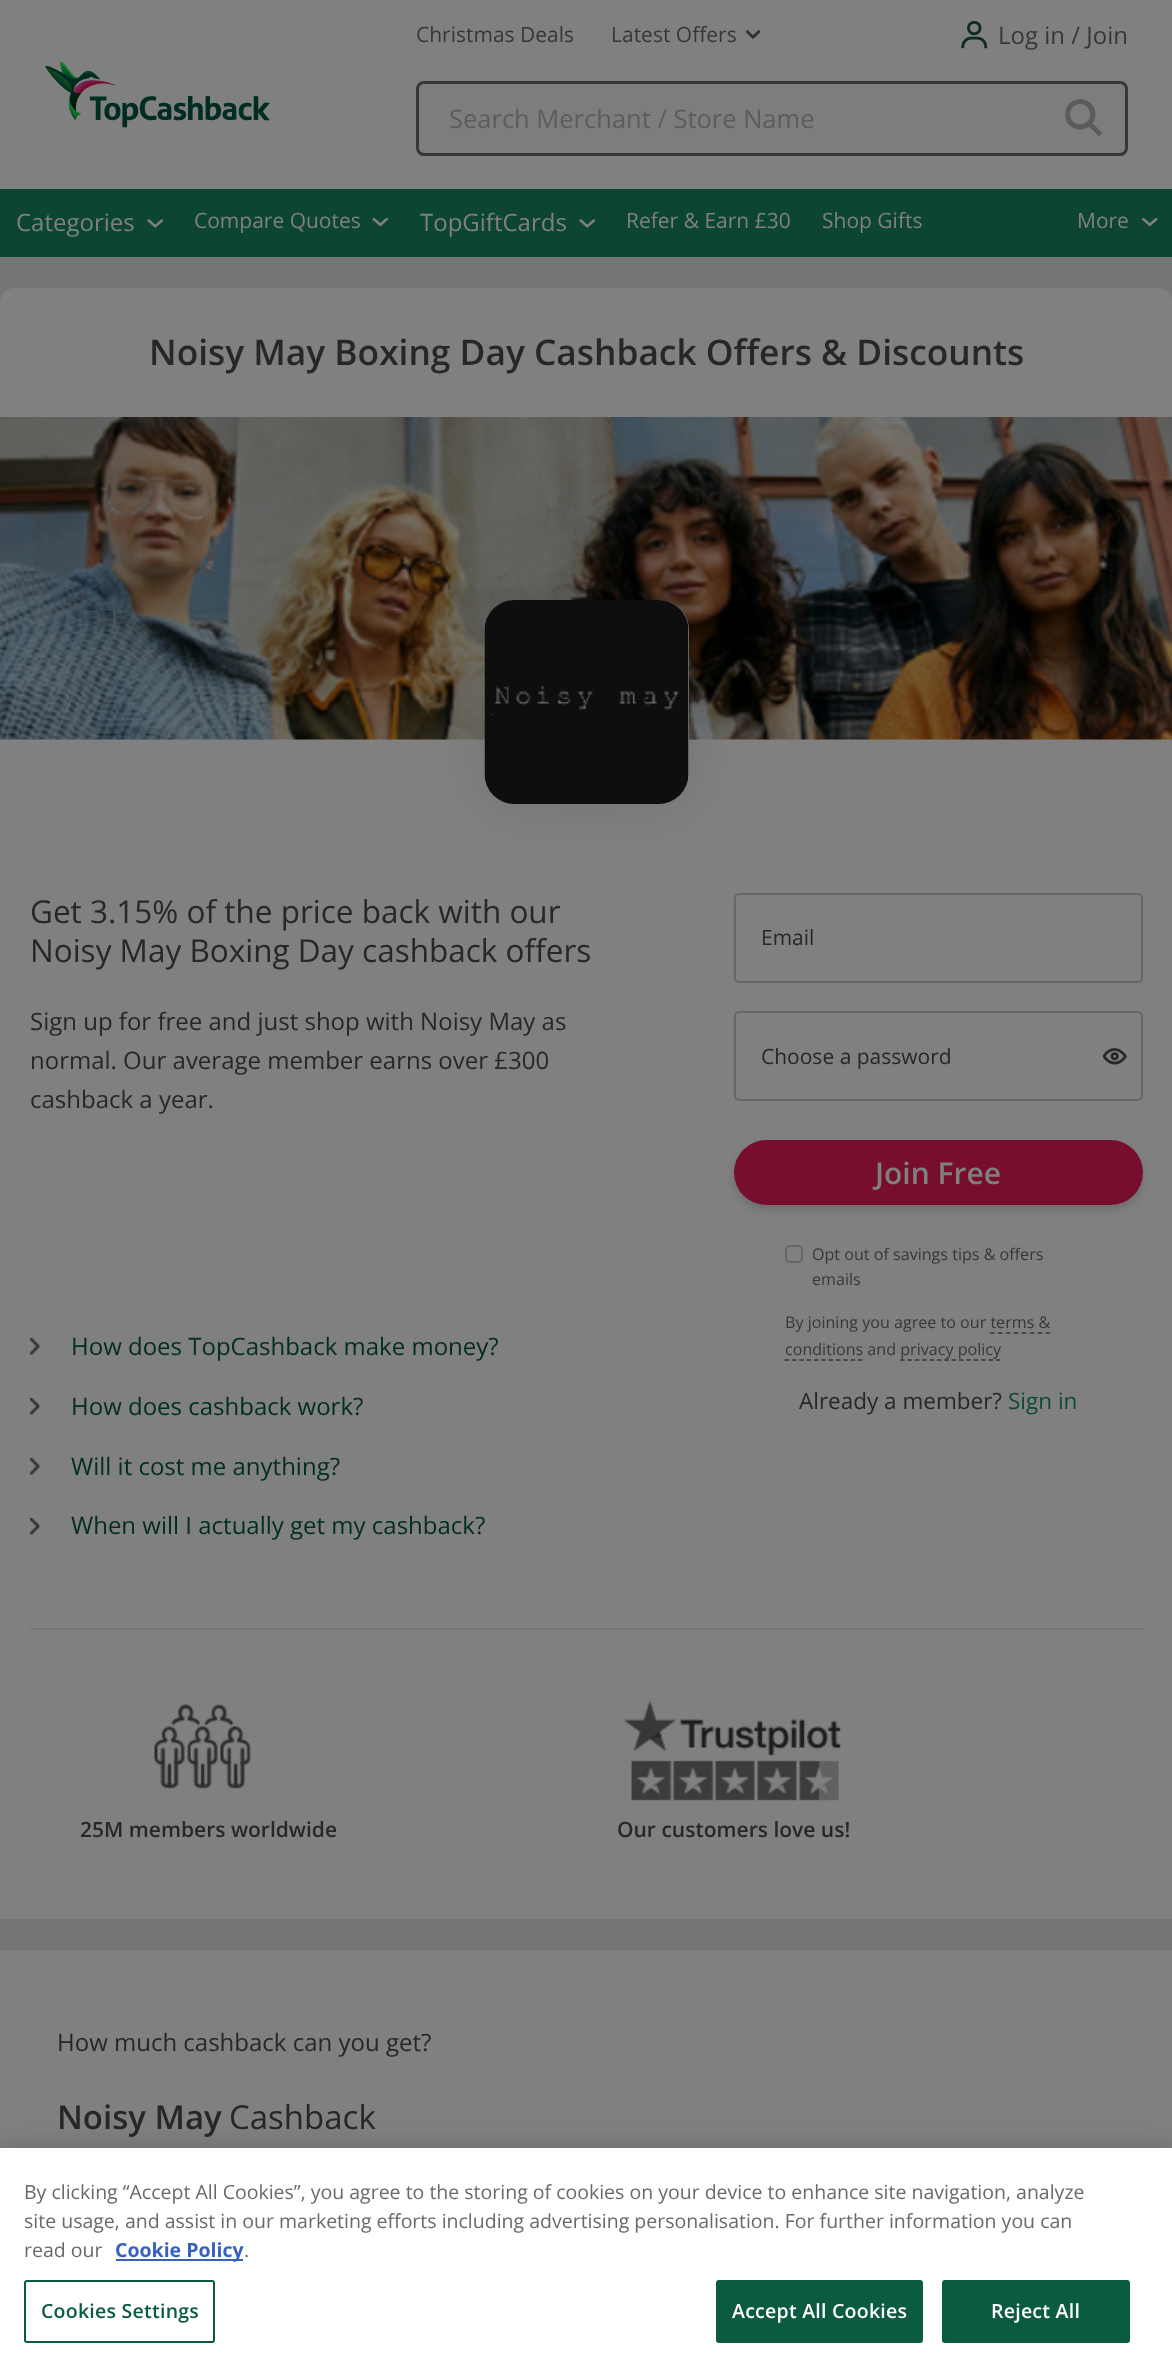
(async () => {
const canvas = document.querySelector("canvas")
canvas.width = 1172
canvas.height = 2373
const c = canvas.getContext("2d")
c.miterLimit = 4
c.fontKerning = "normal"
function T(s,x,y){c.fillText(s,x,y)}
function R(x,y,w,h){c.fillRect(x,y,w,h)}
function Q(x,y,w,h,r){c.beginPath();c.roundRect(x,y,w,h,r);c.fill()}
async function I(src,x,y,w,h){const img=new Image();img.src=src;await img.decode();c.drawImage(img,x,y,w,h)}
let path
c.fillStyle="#757576"
R(0,0,1172,2373)
c.fillStyle="#808080"
R(0,0,1172,189)
c.font="21px Open Sans"
c.fillStyle="#373737"
T("Christmas Deals",416,42)
T("Latest Offers",611,42)
await I("1.png",746,30,15,9)
await I("2.png",961,20,27,29)
c.font="24px Open Sans"
T("Log in / Join",998,44)
await I("3.png",45,62,225,66)
c.fillStyle="#7d7d7d"
Q(416,81,712,75,8)
await I("4.png",1065,99,37,37)
c.beginPath()
c.roundRect(417.5,82.5,709,72,6.5)
c.strokeStyle="#373737"
c.lineWidth=3
c.stroke()
c.font="25.5px Open Sans"
c.fillStyle="#5c5c5c"
T("Search Merchant / Store Name",449,128)
c.fillStyle="#0c4533"
R(0,189,1172,68)
c.font="24px Open Sans"
c.fillStyle="#808080"
T("Categories",16,231)
await I("5.png",147,219,17,9)
c.font="21px Open Sans"
T("Compare Quotes",194,228)
await I("6.png",372,218,17,9)
c.font="24px Open Sans"
T("TopGiftCards",420,231)
await I("5.png",579,219,17,9)
c.font="21px Open Sans"
T("Refer & Earn £30",626,228)
T("Shop Gifts",822,228)
T("More",1077,228)
await I("7.png",1142,218,16,9)
Q(0,288,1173,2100,15)
c.font="600 35.3px Open Sans"
c.fillStyle="#272727"
T("Noisy May Boxing Day Cashback Offers & Discounts",149,365)
await I("8.png",0,417,1172,323)
c.fillStyle="#0000001a"
c.filter="blur(26.5px)"
c.beginPath()
c.roundRect(485,600,204,204,30)
c.fill()
c.filter="none"
c.fillStyle="#808080"
Q(485,600,204,204,30)
await I("9.png",484,600,205,204)
c.fillStyle="#767676"
R(30,1628,1113,2)
c.font="31.5px Open Sans"
c.fillStyle="#272727"
T("Get 3.15% of the price back with our",30,923)
T("Noisy May Boxing Day cashback offers",30,962)
c.font="24px Open Sans"
T("Sign up for free and just shop with Noisy May as",30,1030)
T("normal. Our average member earns over £300",30,1069)
T("cashback a year.",30,1108)
c.beginPath()
c.roundRect(735,894,407,88,4)
c.strokeStyle="#666"
c.lineWidth=2
c.stroke()
c.font="21px Open Sans"
T("Email",761,945)
c.beginPath()
c.roundRect(735,1012,407,88,4)
c.stroke()
T("Choose a password",761,1064)
await I("10.png",1103,1048,24,17)
c.fillStyle="#00000029"
c.filter="blur(4.5px)"
c.beginPath()
c.roundRect(734,1145,409,64,32)
c.fill()
c.filter="none"
c.fillStyle="#770e2e"
Q(734,1140,409,65,32.5)
c.font="600 30px Open Sans"
c.fillStyle="#808080"
T("Join Free",875,1184)
c.beginPath()
c.roundRect(786,1246,16,16,4)
c.stroke()
c.font="16.1px Open Sans"
c.fillStyle="#373737"
T("Opt out of savings tips & offers",812,1260)
T("emails",812,1285)
T("By joining you agree to our terms &",785,1328)
T("conditions and privacy policy",785,1355)
path = new Path2D("M990 1333h60")
c.strokeStyle="#373737"
c.lineWidth=1.5
c.setLineDash([4.5,3.44])
c.stroke(path)
path = new Path2D("M784.5 1360h78")
c.setLineDash([4.5,2.85])
c.stroke(path)
path = new Path2D("M900 1360h100.5")
c.setLineDash([4.5,2.88])
c.stroke(path)
c.font="22.5px Open Sans"
c.fillStyle="#272727"
T("Already a member?",799,1409)
c.fillStyle="#0c4a37"
T("Sign in",1008,1409)
await I("11.png",30,1338,11,17)
c.font="24px Open Sans"
c.fillStyle="#022d21"
T("How does TopCashback make money?",71,1355)
await I("11.png",30,1398,11,17)
T("How does cashback work?",71,1415)
await I("11.png",30,1458,11,17)
T("Will it cost me anything?",71,1475)
await I("11.png",30,1518,11,17)
T("When will I actually get my cashback?",71,1534)
await I("12.png",154,1703,97,86)
c.font="600 21px Open Sans"
c.fillStyle="#272727"
T("25M members worldwide",80,1837)
await I("13.png",624,1700,217,101)
T("Our customers love us!",617,1837)
c.fillStyle="#757576"
R(0,1919,1172,31)
c.font="24px Open Sans"
c.fillStyle="#272727"
T("How much cashback can you get?",57,2051)
c.font="600 33px Open Sans"
T("Noisy May",57,2129)
c.font="33px Open Sans"
T("Cashback",229,2129)
c.fillStyle="#00000033"
c.filter="blur(13.5px)"
c.beginPath()
c.rect(0,2148,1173,225)
c.fill()
c.filter="none"
c.fillStyle="#fff"
R(0,2148,1172,225)
c.font="19.5px Open Sans"
c.fillStyle="#696969"
T("By clicking “Accept All Cookies”, you agree to the storing of cookies on your device to enhance site navigation, analyze",24,2199)
T("site usage, and assist in our marketing efforts including advertising personalisation. For further information you can",24,2228)
T("read our",24,2257)
c.fillStyle="#3860be"
R(116,2259,127,2)
c.font="bold 19.5px Open Sans"
T("Cookie Policy",115,2257)
c.font="19.5px Open Sans"
c.fillStyle="#696969"
T(".",244,2257)
c.beginPath()
c.roundRect(25,2281,189,61,2)
c.strokeStyle="#0b5a42"
c.lineWidth=2
c.setLineDash([])
c.stroke()
c.letterSpacing="0.25px"
c.font="600 19.5px Open Sans"
c.fillStyle="#0b5a42"
T("Cookies Settings",41,2318)
c.beginPath()
c.roundRect(717,2281,205,61,2)
c.fill()
c.stroke()
c.fillStyle="#fff"
T("Accept All Cookies",732,2318)
c.fillStyle="#0b5a42"
c.beginPath()
c.roundRect(943,2281,186,61,2)
c.fill()
c.stroke()
c.fillStyle="#fff"
T("Reject All",991,2318)
})()
